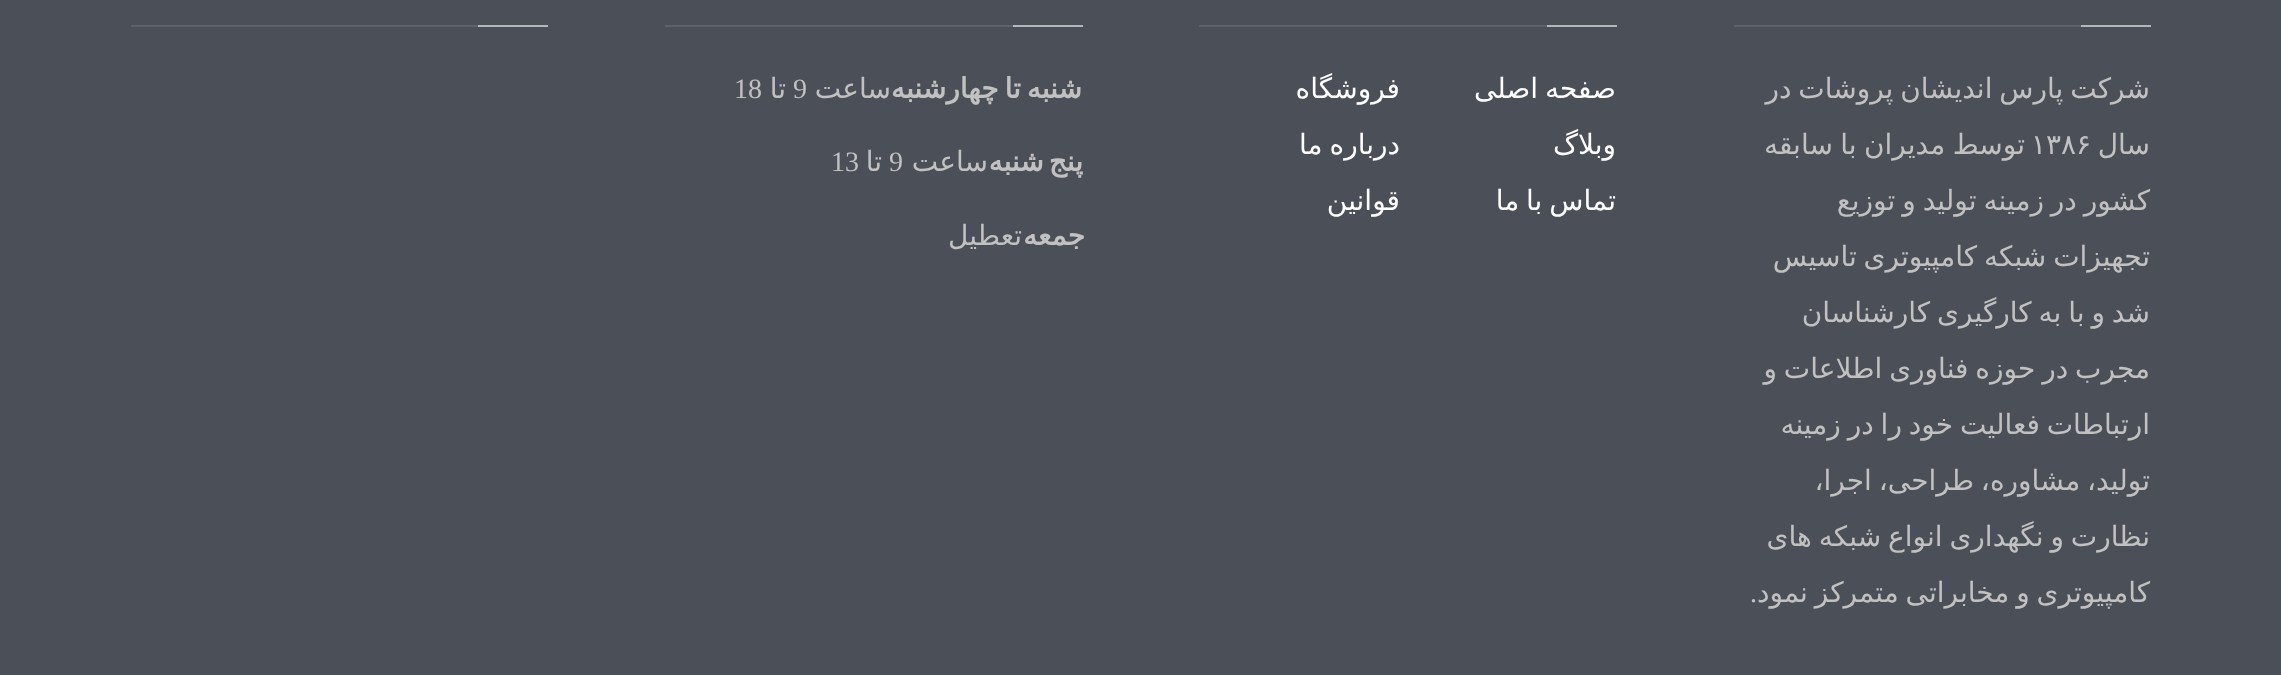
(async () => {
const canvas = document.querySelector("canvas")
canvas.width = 2281
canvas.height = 675
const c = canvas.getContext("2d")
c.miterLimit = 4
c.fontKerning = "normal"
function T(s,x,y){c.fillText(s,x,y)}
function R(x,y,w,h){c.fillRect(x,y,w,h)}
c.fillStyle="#4b4f58"
R(0,0,2281,675)
c.fillStyle="#5d6168"
R(131,25,347,2)
c.fillStyle="#b4b6ba"
R(478,25,70,2)
c.fillStyle="#5d6168"
R(1734,25,347,2)
c.fillStyle="#b4b6ba"
R(2081,25,70,2)
c.wordSpacing="-2px"
c.direction="rtl"
c.font="28px DejaVu Sans"
c.fillStyle="#c1c1c1"
T("شرکت پارس اندیشان پروشات در",2150,98)
c.wordSpacing="0px"
T("سال",2150,154)
c.direction="ltr"
T("۱۳۸۶",2031,154)
c.wordSpacing="-1.5px"
c.direction="rtl"
T("توسط مدیران با سابقه",2025,154)
c.wordSpacing="-2px"
T("کشور در زمینه تولید و توزیع",2150,210)
T("تجهیزات شبکه کامپیوتری تاسیس",2150,266)
T("شد و با به کارگیری کارشناسان",2150,322)
T("مجرب در حوزه فناوری اطلاعات و",2150,378)
T("ارتباطات فعالیت خود را در زمینه",2150,434)
T("تولید، مشاوره، طراحی، اجرا،",2150,490)
T("نظارت و نگهداری انواع شبکه های",2150,546)
T("کامپیوتری و مخابراتی متمرکز نمود",2150,602)
c.wordSpacing="0px"
c.font="28px Liberation Serif"
T(".",1757,602)
c.fillStyle="#5d6168"
R(1199,25,348,2)
c.fillStyle="#b4b6ba"
R(1547,25,70,2)
c.wordSpacing="-2px"
c.font="28px DejaVu Sans"
c.fillStyle="#fff"
T("صفحه اصلی",1616,98)
c.wordSpacing="0px"
T("فروشگاه",1400,98)
T("وبلاگ",1616,154)
c.wordSpacing="-2px"
T("درباره ما",1400,154)
T("تماس با ما",1616,210)
c.wordSpacing="0px"
T("قوانین",1400,210)
c.fillStyle="#5d6168"
R(665,25,348,2)
c.fillStyle="#b4b6ba"
R(1013,25,70,2)
c.wordSpacing="-3px"
c.font="bold 28px DejaVu Sans"
c.fillStyle="#c1c1c1"
T("شنبه تا چهارشنبه",1082,98)
c.wordSpacing="0px"
c.font="28px DejaVu Sans"
T("ساعت",891,98)
c.direction="ltr"
c.font="28px Liberation Serif"
T("9",793,98)
c.direction="rtl"
c.font="28px DejaVu Sans"
T("تا",786,98)
c.direction="ltr"
c.font="28px Liberation Serif"
T("18",734,98)
c.wordSpacing="-4px"
c.direction="rtl"
c.font="bold 28px DejaVu Sans"
T("پنج شنبه",1083,171)
c.wordSpacing="0px"
c.font="28px DejaVu Sans"
T("ساعت",988,171)
c.direction="ltr"
c.font="28px Liberation Serif"
T("9",889,171)
c.direction="rtl"
c.font="28px DejaVu Sans"
T("تا",882,171)
c.direction="ltr"
c.font="28px Liberation Serif"
T("13",831,171)
c.direction="rtl"
c.font="bold 28px DejaVu Sans"
T("جمعه",1085,245)
c.font="28px DejaVu Sans"
T("تعطیل",1022,245)
})()
